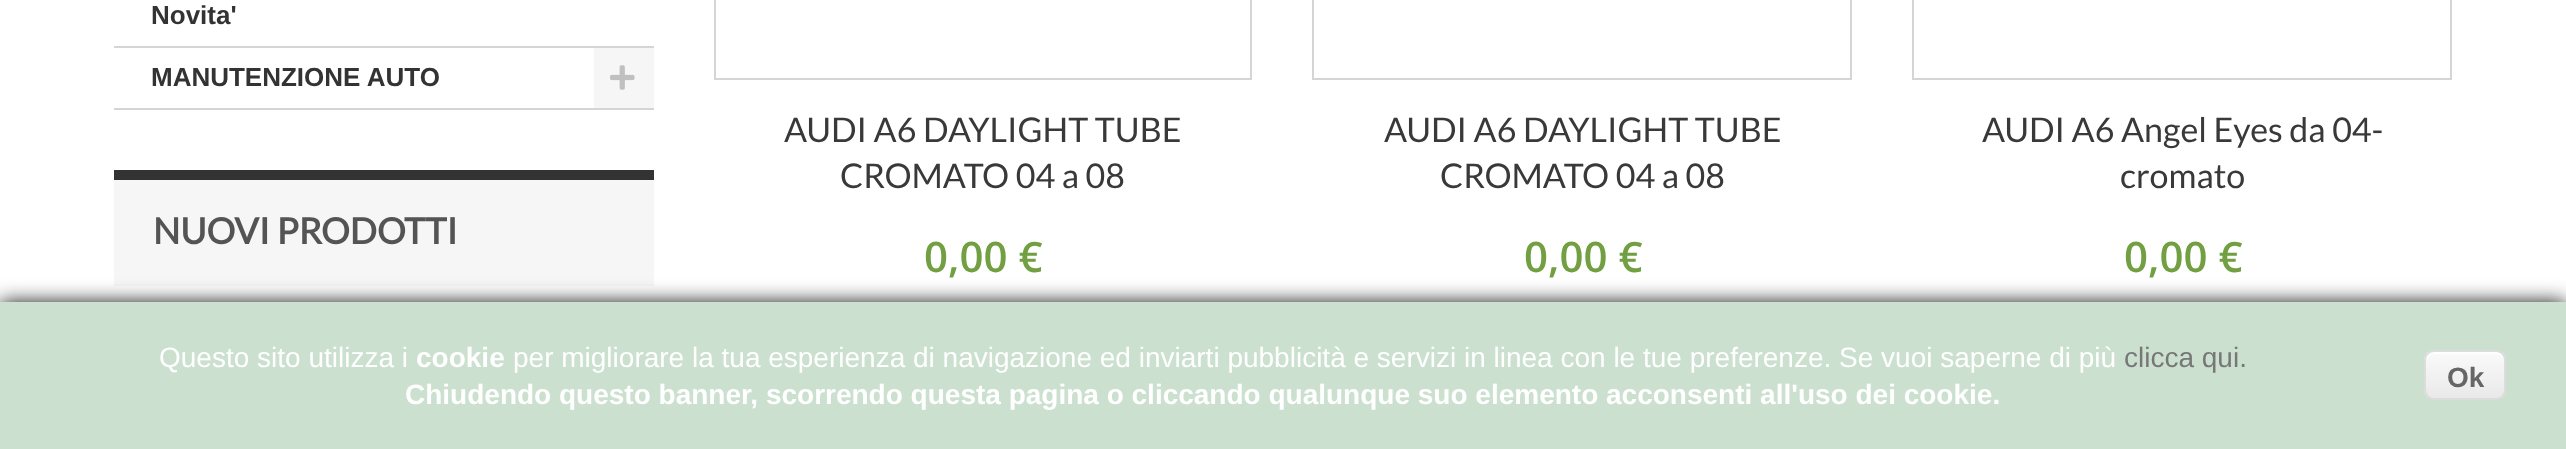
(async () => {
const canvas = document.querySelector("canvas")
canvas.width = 2566
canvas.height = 449
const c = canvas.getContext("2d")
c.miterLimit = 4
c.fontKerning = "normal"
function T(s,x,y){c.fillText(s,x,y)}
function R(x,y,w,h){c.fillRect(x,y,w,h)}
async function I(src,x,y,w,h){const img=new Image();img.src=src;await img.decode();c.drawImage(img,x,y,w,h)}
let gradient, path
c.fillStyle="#fff"
R(0,0,2566,449)
c.fillStyle="#d6d4d4"
R(114,46,540,2)
c.font="bold 26px Liberation Sans"
c.fillStyle="#333"
T("Novita'",151,24)
c.fillStyle="#d6d4d4"
R(114,108,540,2)
c.fillStyle="#333"
T("MANUTENZIONE AUTO",151,86)
c.fillStyle="#f6f6f6"
R(594,48,60,60)
await I("1.png",610,65,25,25)
R(114,180,540,106)
c.fillStyle="#333"
R(114,170,540,10)
c.font="bold 36px Lato"
c.fillStyle="#555454"
T("NUOVI PRODOTTI",153,244)
c.strokeStyle="#d6d4d4"
c.lineWidth=2
c.strokeRect(715,-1,536,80)
c.font="34px Lato"
c.fillStyle="#3a3939"
T("AUDI A6 DAYLIGHT TUBE",784,142)
T("CROMATO 04 a 08",840,188)
c.font="600 42px Open Sans"
c.fillStyle="#719f41"
T("0,00 €",924,272)
c.strokeRect(1313,-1,538,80)
c.font="34px Lato"
c.fillStyle="#3a3939"
T("AUDI A6 DAYLIGHT TUBE",1384,142)
T("CROMATO 04 a 08",1440,188)
c.font="600 42px Open Sans"
c.fillStyle="#719f41"
T("0,00 €",1524,272)
c.strokeRect(1913,-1,538,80)
c.font="34px Lato"
c.fillStyle="#3a3939"
T("AUDI A6 Angel Eyes da 04-",1982,142)
T("cromato",2120,188)
c.font="600 42px Open Sans"
c.fillStyle="#719f41"
T("0,00 €",2124,272)
c.fillStyle="#161617"
c.filter="blur(10px)"
c.beginPath()
c.rect(0,302,2566,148)
c.fill()
c.filter="none"
c.fillStyle="#cce0cf"
R(0,302,2566,147)
c.font="28px Liberation Sans"
c.fillStyle="#fff"
T("Questo sito utilizza i",159,367)
c.font="bold 28px Liberation Sans"
T("cookie",416,367)
c.font="28px Liberation Sans"
T("per migliorare la tua esperienza di navigazione ed inviarti pubblicità e servizi in linea con le tue preferenze. Se vuoi saperne di più",513,367)
c.fillStyle="#777"
T("clicca qui.",2124,367)
c.font="bold 28px Liberation Sans"
c.fillStyle="#fff"
T("Chiudendo questo banner, scorrendo questa pagina o cliccando qualunque suo elemento acconsenti all'uso dei cookie.",405,404)
c.save()
c.beginPath()
c.roundRect(2424,350,82,50,10)
c.clip()
gradient = c.createLinearGradient(2426,352,2426,398)
gradient.addColorStop(.05,"#f9f9f9")
gradient.addColorStop(1,"#e9e9e9")
c.fillStyle = gradient
R(2424,352,82,46)
c.restore()
path = new Path2D("M2434 354h62c4 0 8 4 8 8c0-12-9-10-18-10h-42c-9 0-18-2-18 10c0-4 4-8 8-8z")
c.fill(path)
c.beginPath()
c.roundRect(2425,351,80,48,9)
c.strokeStyle="#dcdcdc"
c.stroke()
c.fillStyle="#666"
T("Ok",2447,387)
})()
